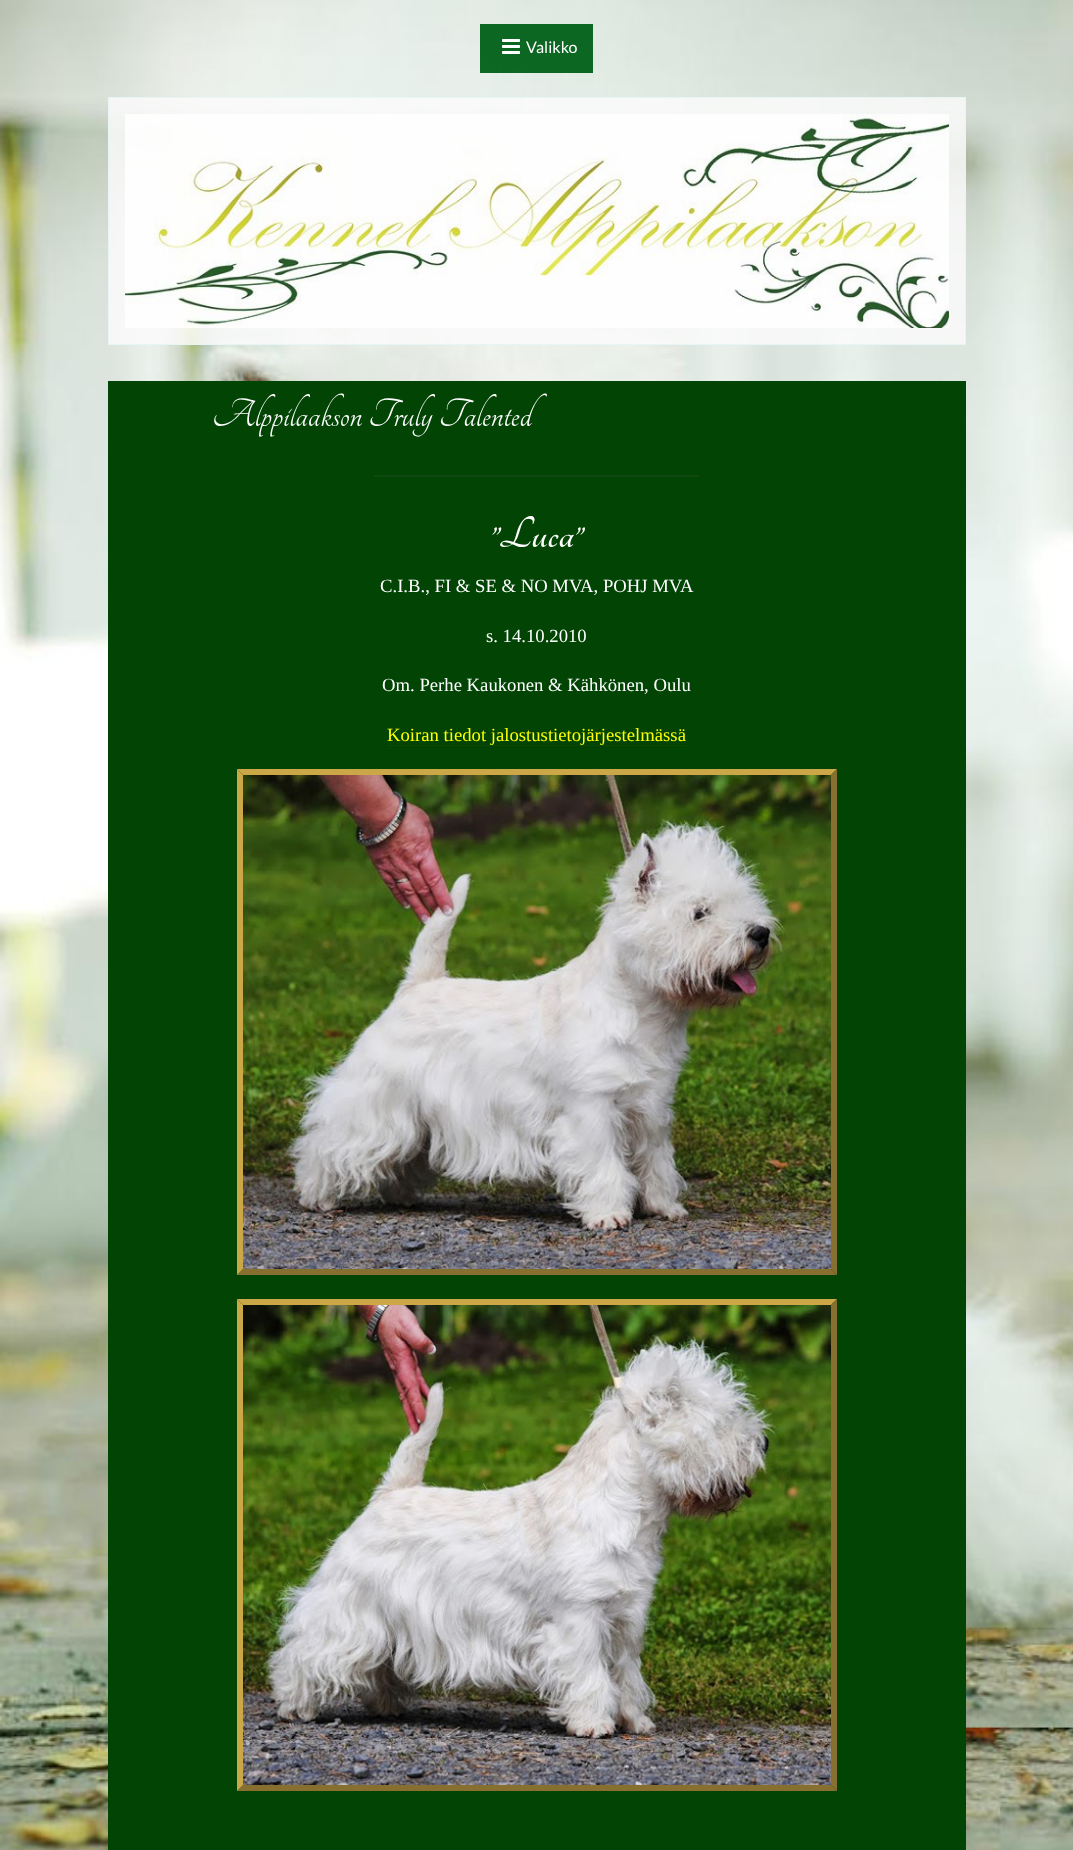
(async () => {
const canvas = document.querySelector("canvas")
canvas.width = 1073
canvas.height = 1850
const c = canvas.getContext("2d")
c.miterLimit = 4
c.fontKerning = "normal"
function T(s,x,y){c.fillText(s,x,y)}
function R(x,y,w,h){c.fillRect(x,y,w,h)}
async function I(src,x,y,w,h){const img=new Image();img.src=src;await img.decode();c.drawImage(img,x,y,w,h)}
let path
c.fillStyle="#fff"
R(0,0,1073,1850)
await I("1.png",0,0,1073,1850)
c.fillStyle="#006018f2"
R(480,24,113,49)
await I("2.png",502,39,18,15)
c.font="16px Lato"
c.fillStyle="#fff"
T("Valikko",526,53)
c.fillStyle="#fafafad9"
R(108,97,858,248)
c.strokeStyle="#e5f5f5d9"
c.strokeRect(108.5,97.5,857,247)
await I("3.png",125,114,824,214)
c.fillStyle="#024404"
R(108,381,858,1469)
c.font="43px Tangerine"
c.fillStyle="#fff"
T("Alppilaakson Truly Talented",212,426)
c.fillStyle="#0e4910"
R(374,475,325,2)
c.font="bold 48px Tangerine"
c.fillStyle="#fff"
T("”Luca”",490,547)
c.font="18.7px Liberation Serif"
T("C.I.B., FI & SE & NO MVA, POHJ MVA",380,592)
T("s. 14.10.2010",486,642)
T("Om. Perhe Kaukonen & Kähkönen, Oulu",382,691)
c.fillStyle="#ff0"
T("Koiran tiedot jalostustietojärjestelmässä",387,741)
c.fillStyle="#0e4903"
R(387,745,299,1)
c.fillStyle="#cba747"
path = new Path2D("M237 769h600l-6 6h-588z")
c.fill(path)
c.fillStyle="#876f2f"
path = new Path2D("M837 769v506l-6-6v-494z")
c.fill(path)
path = new Path2D("M837 1275h-600l6-6h588z")
c.fill(path)
c.fillStyle="#cba747"
path = new Path2D("M237 1275v-506l6 6v494z")
c.fill(path)
await I("4.png",243,775,588,494)
path = new Path2D("M237 1299h600l-6 6h-588z")
c.fill(path)
c.fillStyle="#876f2f"
path = new Path2D("M837 1299v492l-6-6v-480z")
c.fill(path)
path = new Path2D("M837 1791h-600l6-6h588z")
c.fill(path)
c.fillStyle="#cba747"
path = new Path2D("M237 1791v-492l6 6v480z")
c.fill(path)
await I("5.png",243,1305,588,480)
})()
